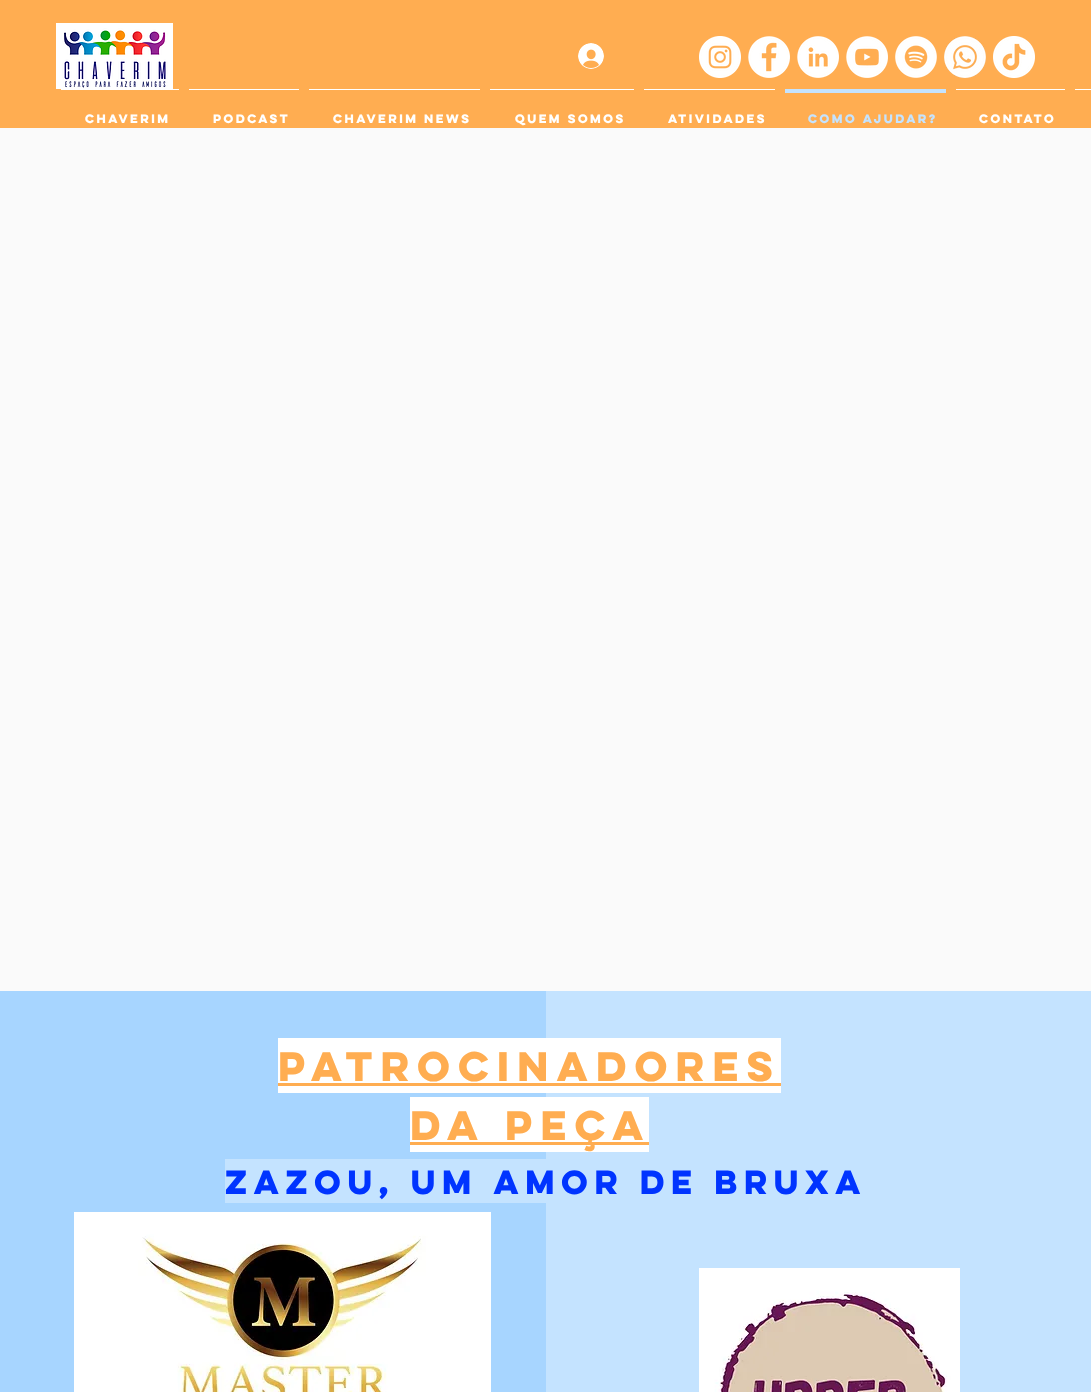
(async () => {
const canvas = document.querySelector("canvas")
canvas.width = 1091
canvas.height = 1392
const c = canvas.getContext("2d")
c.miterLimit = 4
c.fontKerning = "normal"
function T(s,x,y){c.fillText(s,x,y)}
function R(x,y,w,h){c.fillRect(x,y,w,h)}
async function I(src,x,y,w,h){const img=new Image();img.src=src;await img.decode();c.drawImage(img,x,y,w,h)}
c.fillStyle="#c4e3ff"
R(0,0,1091,1392)
c.fillStyle="#ffad51"
R(0,0,1091,128)
await I("1.png",56,23,117,66)
await I("2.png",578,43,26,26)
await I("3.png",699,36,42,42)
await I("4.png",748,36,42,42)
await I("5.png",797,36,42,42)
await I("6.png",846,36,42,42)
await I("7.png",895,36,42,42)
await I("8.png",944,36,42,42)
await I("9.png",993,36,42,42)
c.fillStyle="#fff"
R(1075,89,16,1)
R(61,89,118,1)
c.font="bold 11px 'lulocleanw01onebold'"
T("Chaverim",85,123)
R(189,89,110,1)
T("Podcast",213,123)
R(309,89,171,1)
T("Chaverim News",333,123)
R(490,89,144,1)
T("Quem Somos",515,123)
R(644,89,131,1)
T("Atividades",668,123)
c.fillStyle="#c4e3ff"
R(785,89,161,4)
T("Como ajudar?",808,123)
c.fillStyle="#fff"
R(956,89,109,1)
T("Contato",979,123)
c.fillStyle="#fafafa"
R(0,128,1091,863)
c.fillStyle="#a7d5ff"
R(0,991,546,401)
await I("10.png",74,1212,417,180)
await I("11.png",699,1268,261,124)
c.fillStyle="#fff"
R(278,1038,503,55)
c.font="bold 37px 'lulocleanw01onebold'"
c.fillStyle="#ffad51"
T("Patrocinadores",278,1081)
R(278,1083,503,3)
c.fillStyle="#fff"
R(410,1097,239,55)
c.fillStyle="#ffad51"
R(410,1142,239,3)
T("da peça",410,1140)
c.fillStyle="#c4e3ff"
R(225,1159,321,44)
c.font="bold 30px 'lulocleanw01onebold'"
c.fillStyle="#0034ff"
T("Zazou, um amor de bruxa",225,1194)
})()
